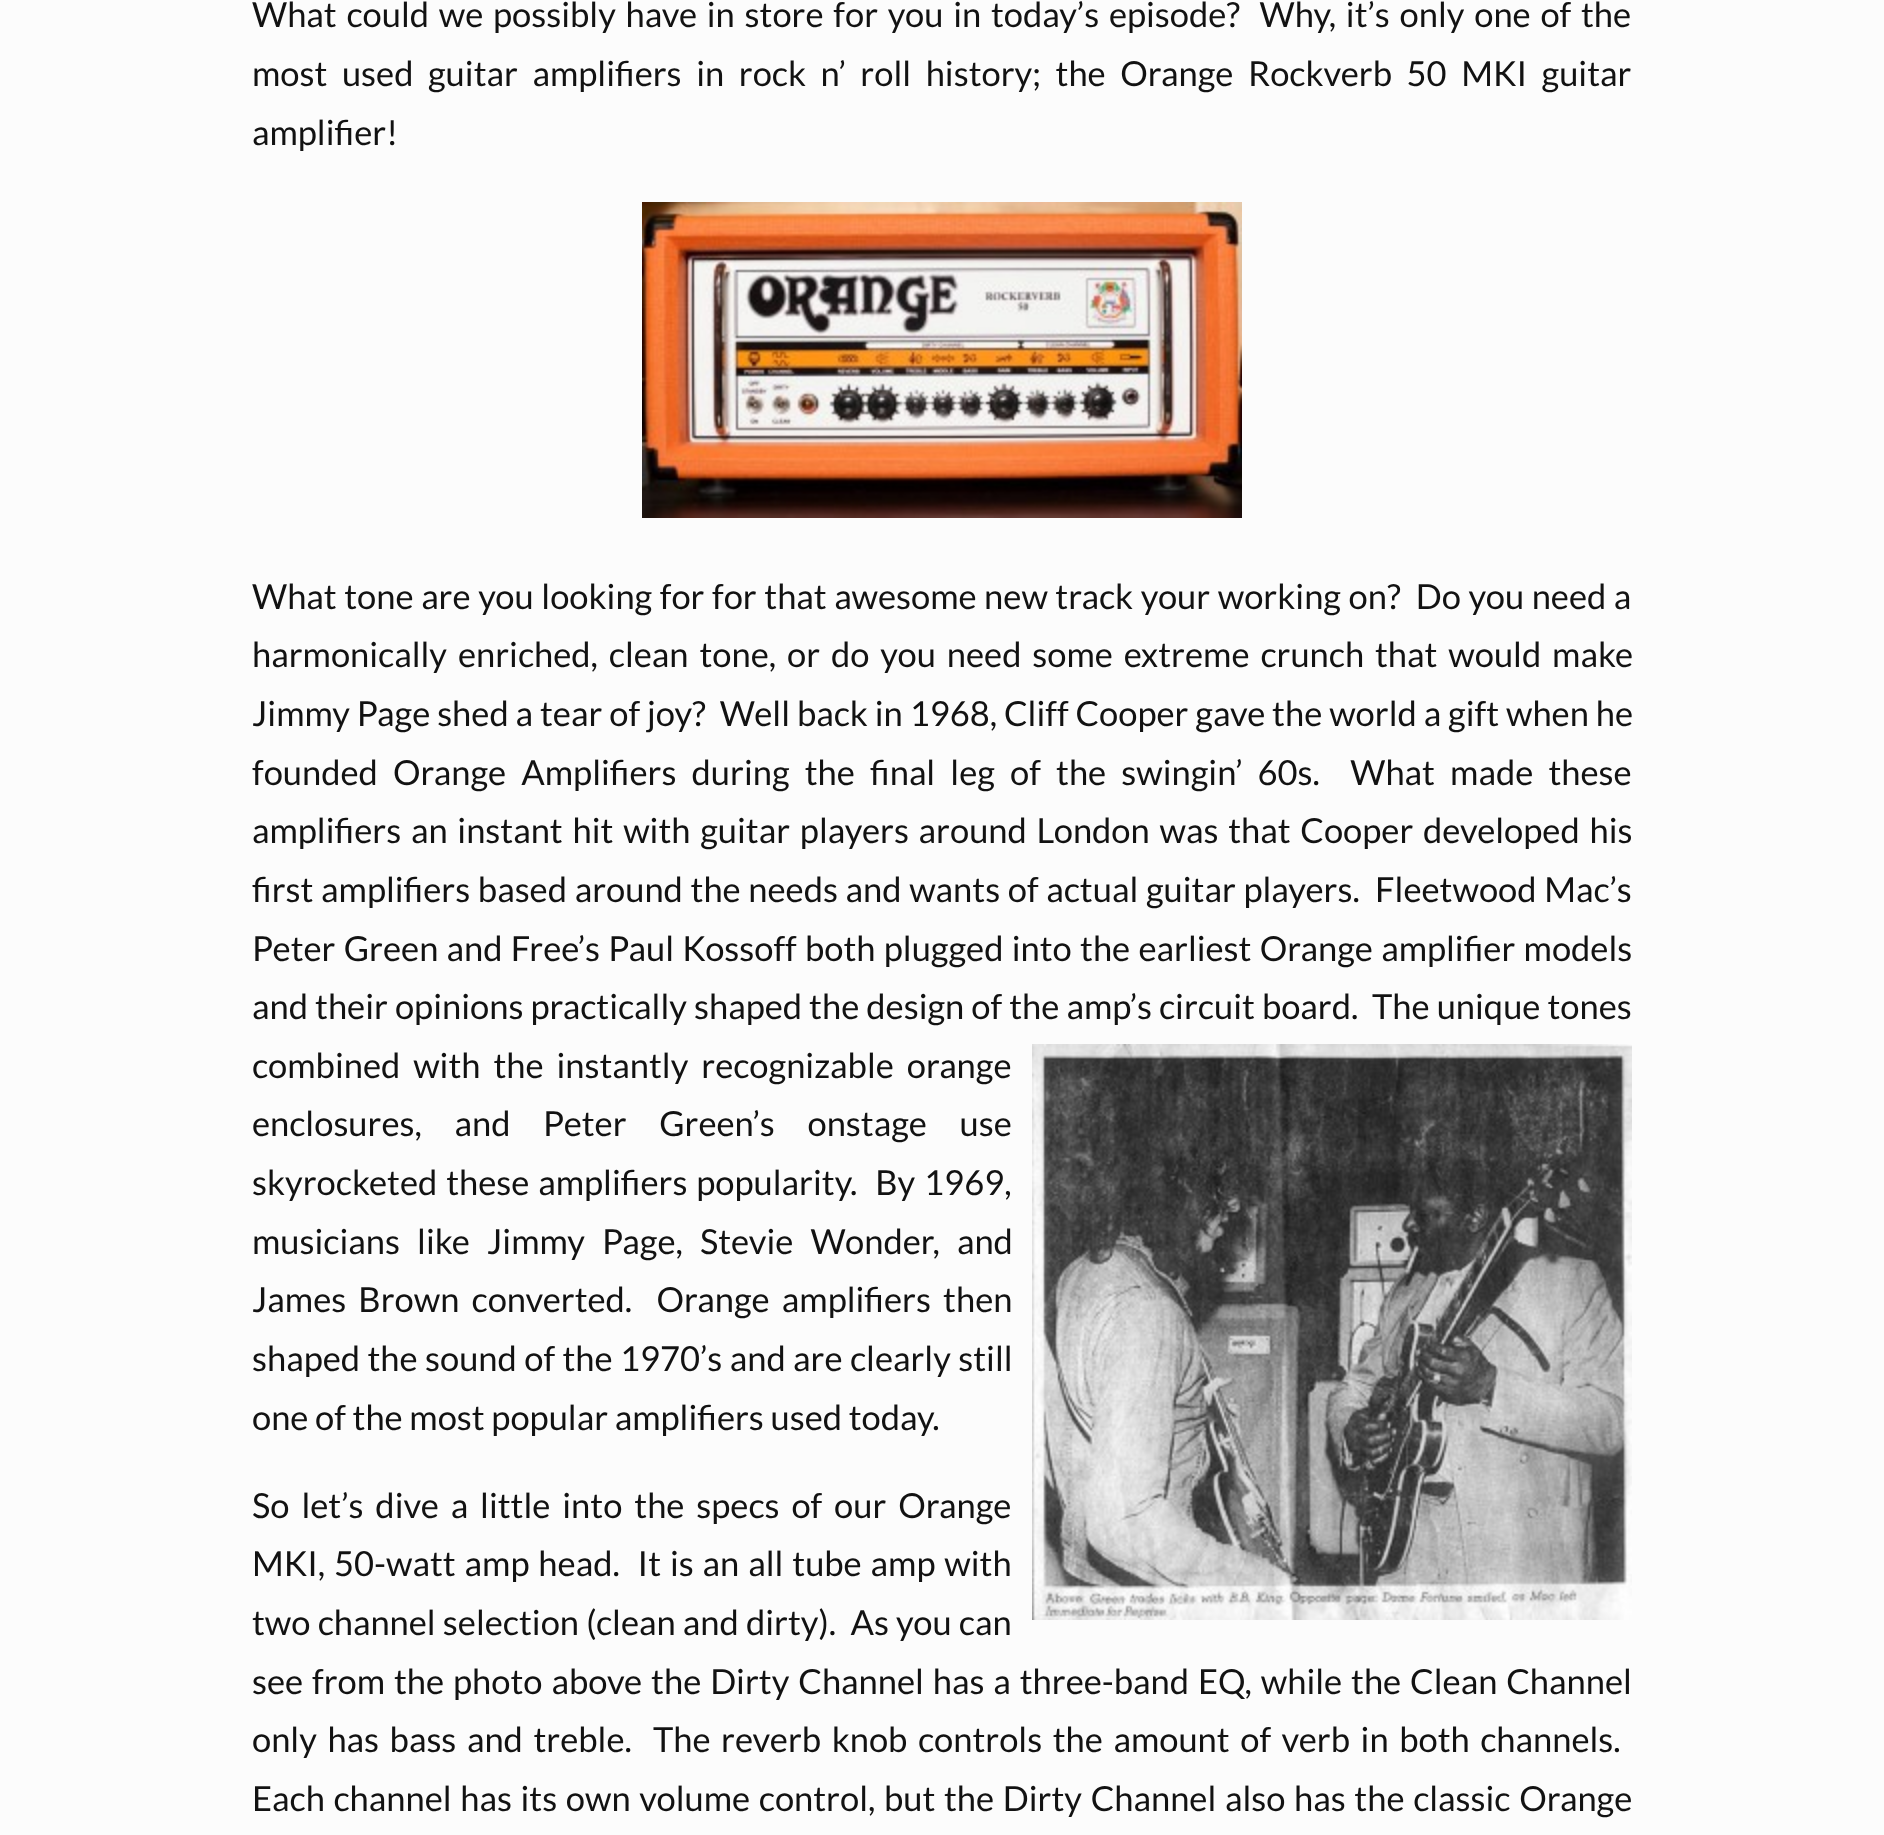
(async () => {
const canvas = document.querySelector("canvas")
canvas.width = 1884
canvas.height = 1835
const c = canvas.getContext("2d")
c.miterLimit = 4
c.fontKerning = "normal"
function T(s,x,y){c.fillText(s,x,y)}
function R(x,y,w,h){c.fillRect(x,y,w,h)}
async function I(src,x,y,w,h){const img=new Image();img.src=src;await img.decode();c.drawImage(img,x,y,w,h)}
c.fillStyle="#fcfcfc"
R(0,0,1884,1835)
c.wordSpacing="3.1px"
c.font="34.5px Lato"
c.fillStyle="#121212"
T("What could we possibly have in store for you in today’s episode?  Why, it’s only one of the",252,27)
c.wordSpacing="7.9px"
T("most used guitar amplifiers in rock n’ roll history; the Orange Rockverb 50 MKI guitar",252,86)
c.wordSpacing="0px"
T("amplifier!",252,145)
await I("1.png",642,202,600,316)
c.wordSpacing="0.9px"
T("What tone are you looking for for that awesome new track your working on?  Do you need a",252,609)
c.wordSpacing="4.25px"
T("harmonically enriched, clean tone, or do you need some extreme crunch that would make",252,667)
c.wordSpacing="0.25px"
T("Jimmy Page shed a tear of joy?  Well back in 1968, Cliff Cooper gave the world a gift when he",252,726)
c.wordSpacing="8.5px"
T("founded Orange Amplifiers during the final leg of the swingin’ 60s.  What made these",252,785)
c.wordSpacing="3.1px"
T("amplifiers an instant hit with guitar players around London was that Cooper developed his",252,843)
c.wordSpacing="1px"
T("first amplifiers based around the needs and wants of actual guitar players.  Fleetwood Mac’s",252,902)
c.wordSpacing="1.6px"
T("Peter Green and Free’s Paul Kossoff both plugged into the earliest Orange amplifier models",252,961)
c.wordSpacing="0.4px"
T("and their opinions practically shaped the design of the amp’s circuit board.",252,1019)
T("The unique tones",1372,1019)
c.wordSpacing="6.25px"
T("combined with the instantly recognizable orange",252,1078)
await I("2.png",1032,1044,600,576)
c.wordSpacing="26px"
T("enclosures, and Peter Green’s onstage use",252,1136)
c.wordSpacing="2.25px"
T("skyrocketed these amplifiers popularity.  By 1969,",252,1195)
c.wordSpacing="10.5px"
T("musicians like Jimmy Page, Stevie Wonder, and",252,1254)
c.wordSpacing="5.5px"
T("James Brown converted.  Orange amplifiers then",252,1312)
c.wordSpacing="0.75px"
T("shaped the sound of the 1970’s and are clearly still",252,1371)
c.wordSpacing="0px"
T("one of the most popular amplifiers used today.",252,1430)
c.wordSpacing="5.25px"
T("So let’s dive a little into the specs of our Orange",252,1518)
c.wordSpacing="2.25px"
T("MKI, 50-watt amp head.  It is an all tube amp with",252,1576)
c.wordSpacing="0.5px"
T("two channel selection (clean and dirty).  As you can",252,1635)
c.wordSpacing="2.25px"
T("see from the photo above the Dirty Channel has a three-band EQ, while the Clean Channel",252,1694)
c.wordSpacing="3.9px"
T("only has bass and treble.  The reverb knob controls the amount of verb in both channels.",252,1752)
c.wordSpacing="2px"
T("Each channel has its own volume control, but the Dirty Channel also has the classic Orange",252,1811)
})()
